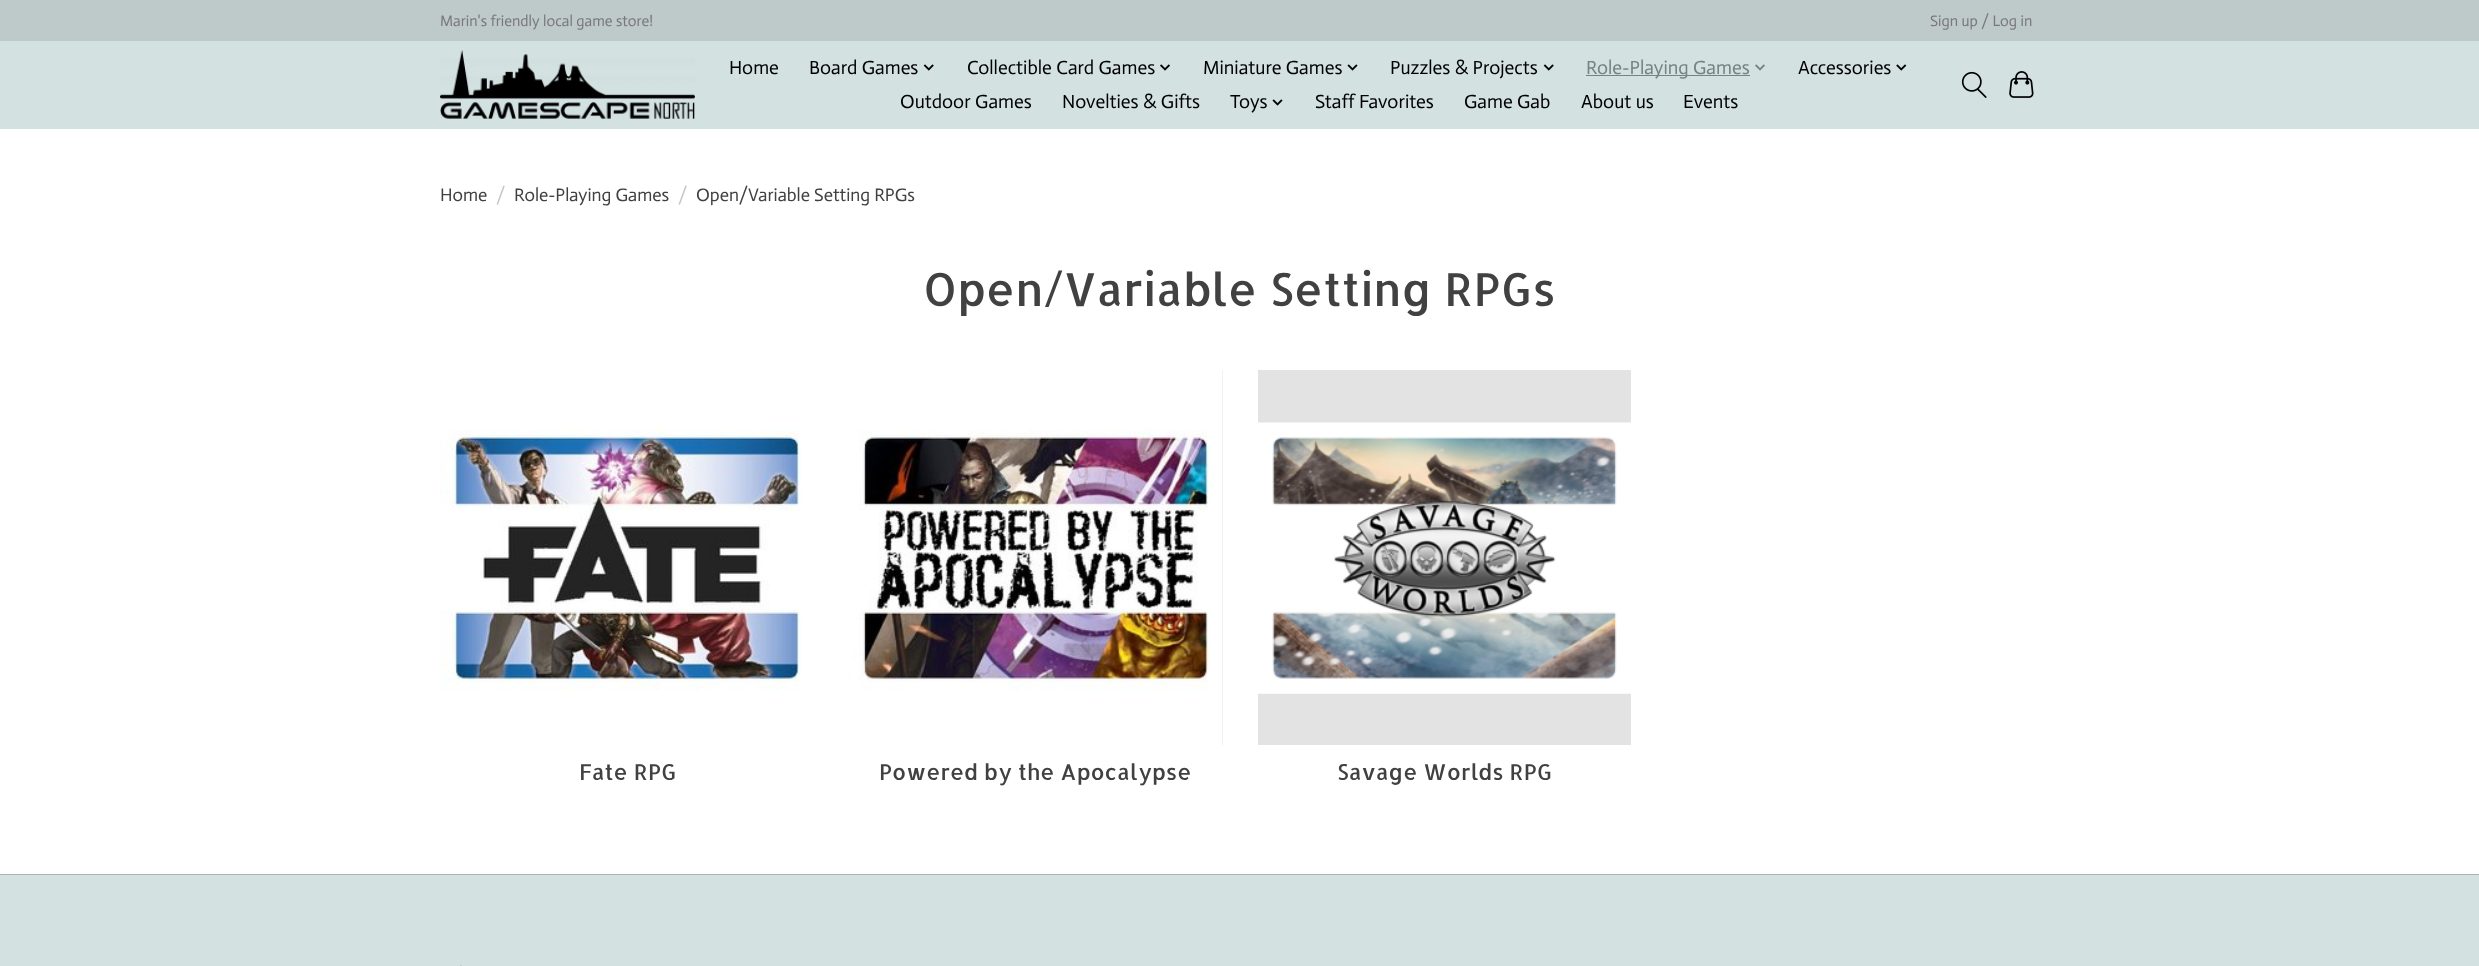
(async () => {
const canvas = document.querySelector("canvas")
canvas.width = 2479
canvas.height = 966
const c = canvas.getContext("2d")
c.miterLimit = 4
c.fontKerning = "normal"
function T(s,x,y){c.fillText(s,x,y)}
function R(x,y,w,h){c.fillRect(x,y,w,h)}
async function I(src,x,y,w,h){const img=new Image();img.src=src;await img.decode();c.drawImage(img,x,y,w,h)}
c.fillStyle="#fff"
R(0,0,2479,966)
c.fillStyle="#d3e1e1"
R(0,41,2479,88)
c.fillStyle="#bec9c9"
R(0,0,2479,41)
c.font="15.25px Actor"
c.fillStyle="#797979"
T("Marin's friendly local game store!",440,26)
T("Sign up / Log in",1930,26)
await I("1.png",440,50,255,69)
c.font="19.25px Actor"
c.fillStyle="#000"
T("Home",729,74)
T("Board Games",809,74)
await I("2.png",923,64,11,7)
T("Collectible Card Games",967,74)
await I("3.png",1160,64,10,7)
T("Miniature Games",1203,74)
await I("4.png",1347,64,11,7)
T("Puzzles & Projects",1390,74)
await I("2.png",1543,64,11,7)
c.fillStyle="#778282"
R(1586,75,164,1)
T("Role-Playing Games",1586,74)
await I("5.png",1755,64,10,7)
c.fillStyle="#000"
T("Accessories",1798,74)
await I("6.png",1896,64,11,7)
T("Outdoor Games",900,108)
T("Novelties & Gifts",1062,108)
T("Toys",1230,108)
await I("4.png",1272,99,11,7)
T("Staff Favorites",1315,108)
T("Game Gab",1464,108)
T("About us",1581,108)
T("Events",1683,108)
await I("7.png",1961,71,26,27)
await I("8.png",2009,71,25,27)
c.font="18.25px Actor"
c.fillStyle="#414141"
T("Home",440,201)
c.fillStyle="#c6c6c6"
T("/",496,201)
c.fillStyle="#414141"
T("Role-Playing Games",514,201)
c.fillStyle="#c6c6c6"
T("/",678,201)
c.fillStyle="#414141"
T("Open/Variable Setting RPGs",696,201)
c.font="45.6px Allerta"
T("Open/Variable Setting RPGs",923,306)
await I("9.png",440,370,374,375)
c.font="22px Allerta"
T("Fate RPG",579,780)
c.fillStyle="#e3e3e3"
R(1222,370,1,375)
await I("10.png",849,370,374,375)
c.fillStyle="#414141"
T("Powered by the Apocalypse",879,780)
c.fillStyle="#e3e3e3"
R(1258,370,373,375)
await I("11.png",1258,422,373,272)
c.fillStyle="#414141"
T("Savage Worlds RPG",1337,780)
c.fillStyle="#d3e1e1"
R(0,875,2479,91)
c.fillStyle="#a9b4b4"
R(0,874,2479,1)
await I("12.png",460,965,2,1)
})()
